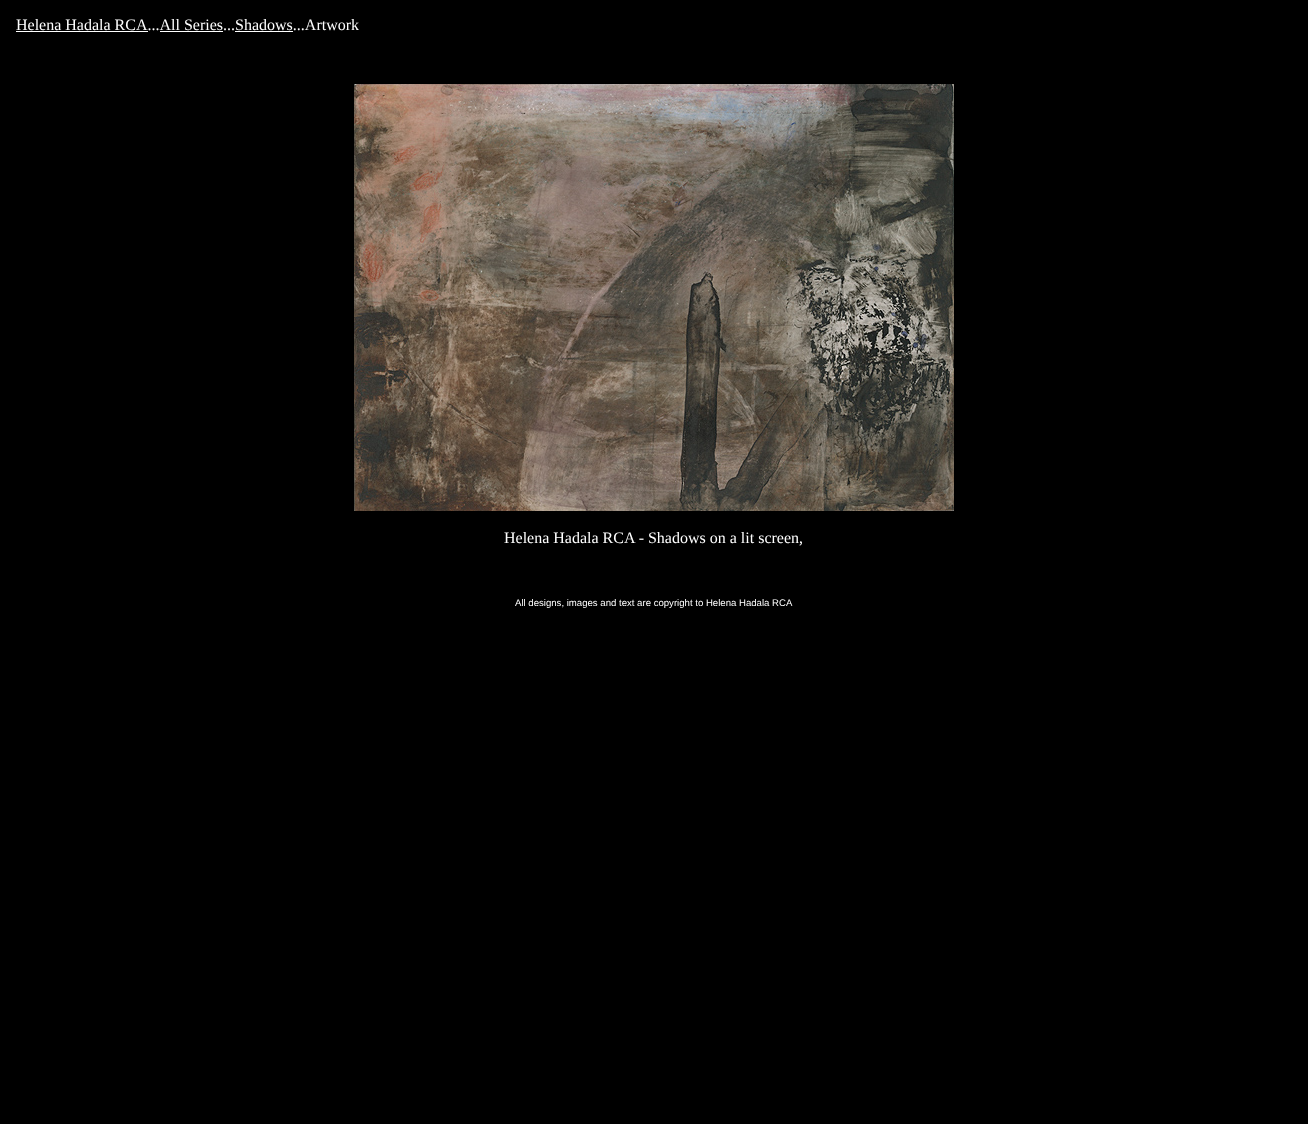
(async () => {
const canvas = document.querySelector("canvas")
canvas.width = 1308
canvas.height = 1124
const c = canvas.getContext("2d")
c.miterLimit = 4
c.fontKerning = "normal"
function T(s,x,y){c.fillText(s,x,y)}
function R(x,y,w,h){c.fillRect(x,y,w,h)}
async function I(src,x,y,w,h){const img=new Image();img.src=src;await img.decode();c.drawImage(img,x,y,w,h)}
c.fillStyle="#000"
R(0,0,1308,1124)
c.font="16px Liberation Serif"
c.fillStyle="#fff"
T("Helena Hadala RCA...All Series...Shadows...Artwork",16,30)
R(16,31,132,1)
R(160,31,63,1)
R(235,31,58,1)
await I("1.png",354,84,600,427)
T("Helena Hadala RCA - Shadows on a lit screen,",504,543)
c.font="9.6px Liberation Sans"
T("All designs, images and text are copyright to Helena Hadala RCA",515,606)
})()
